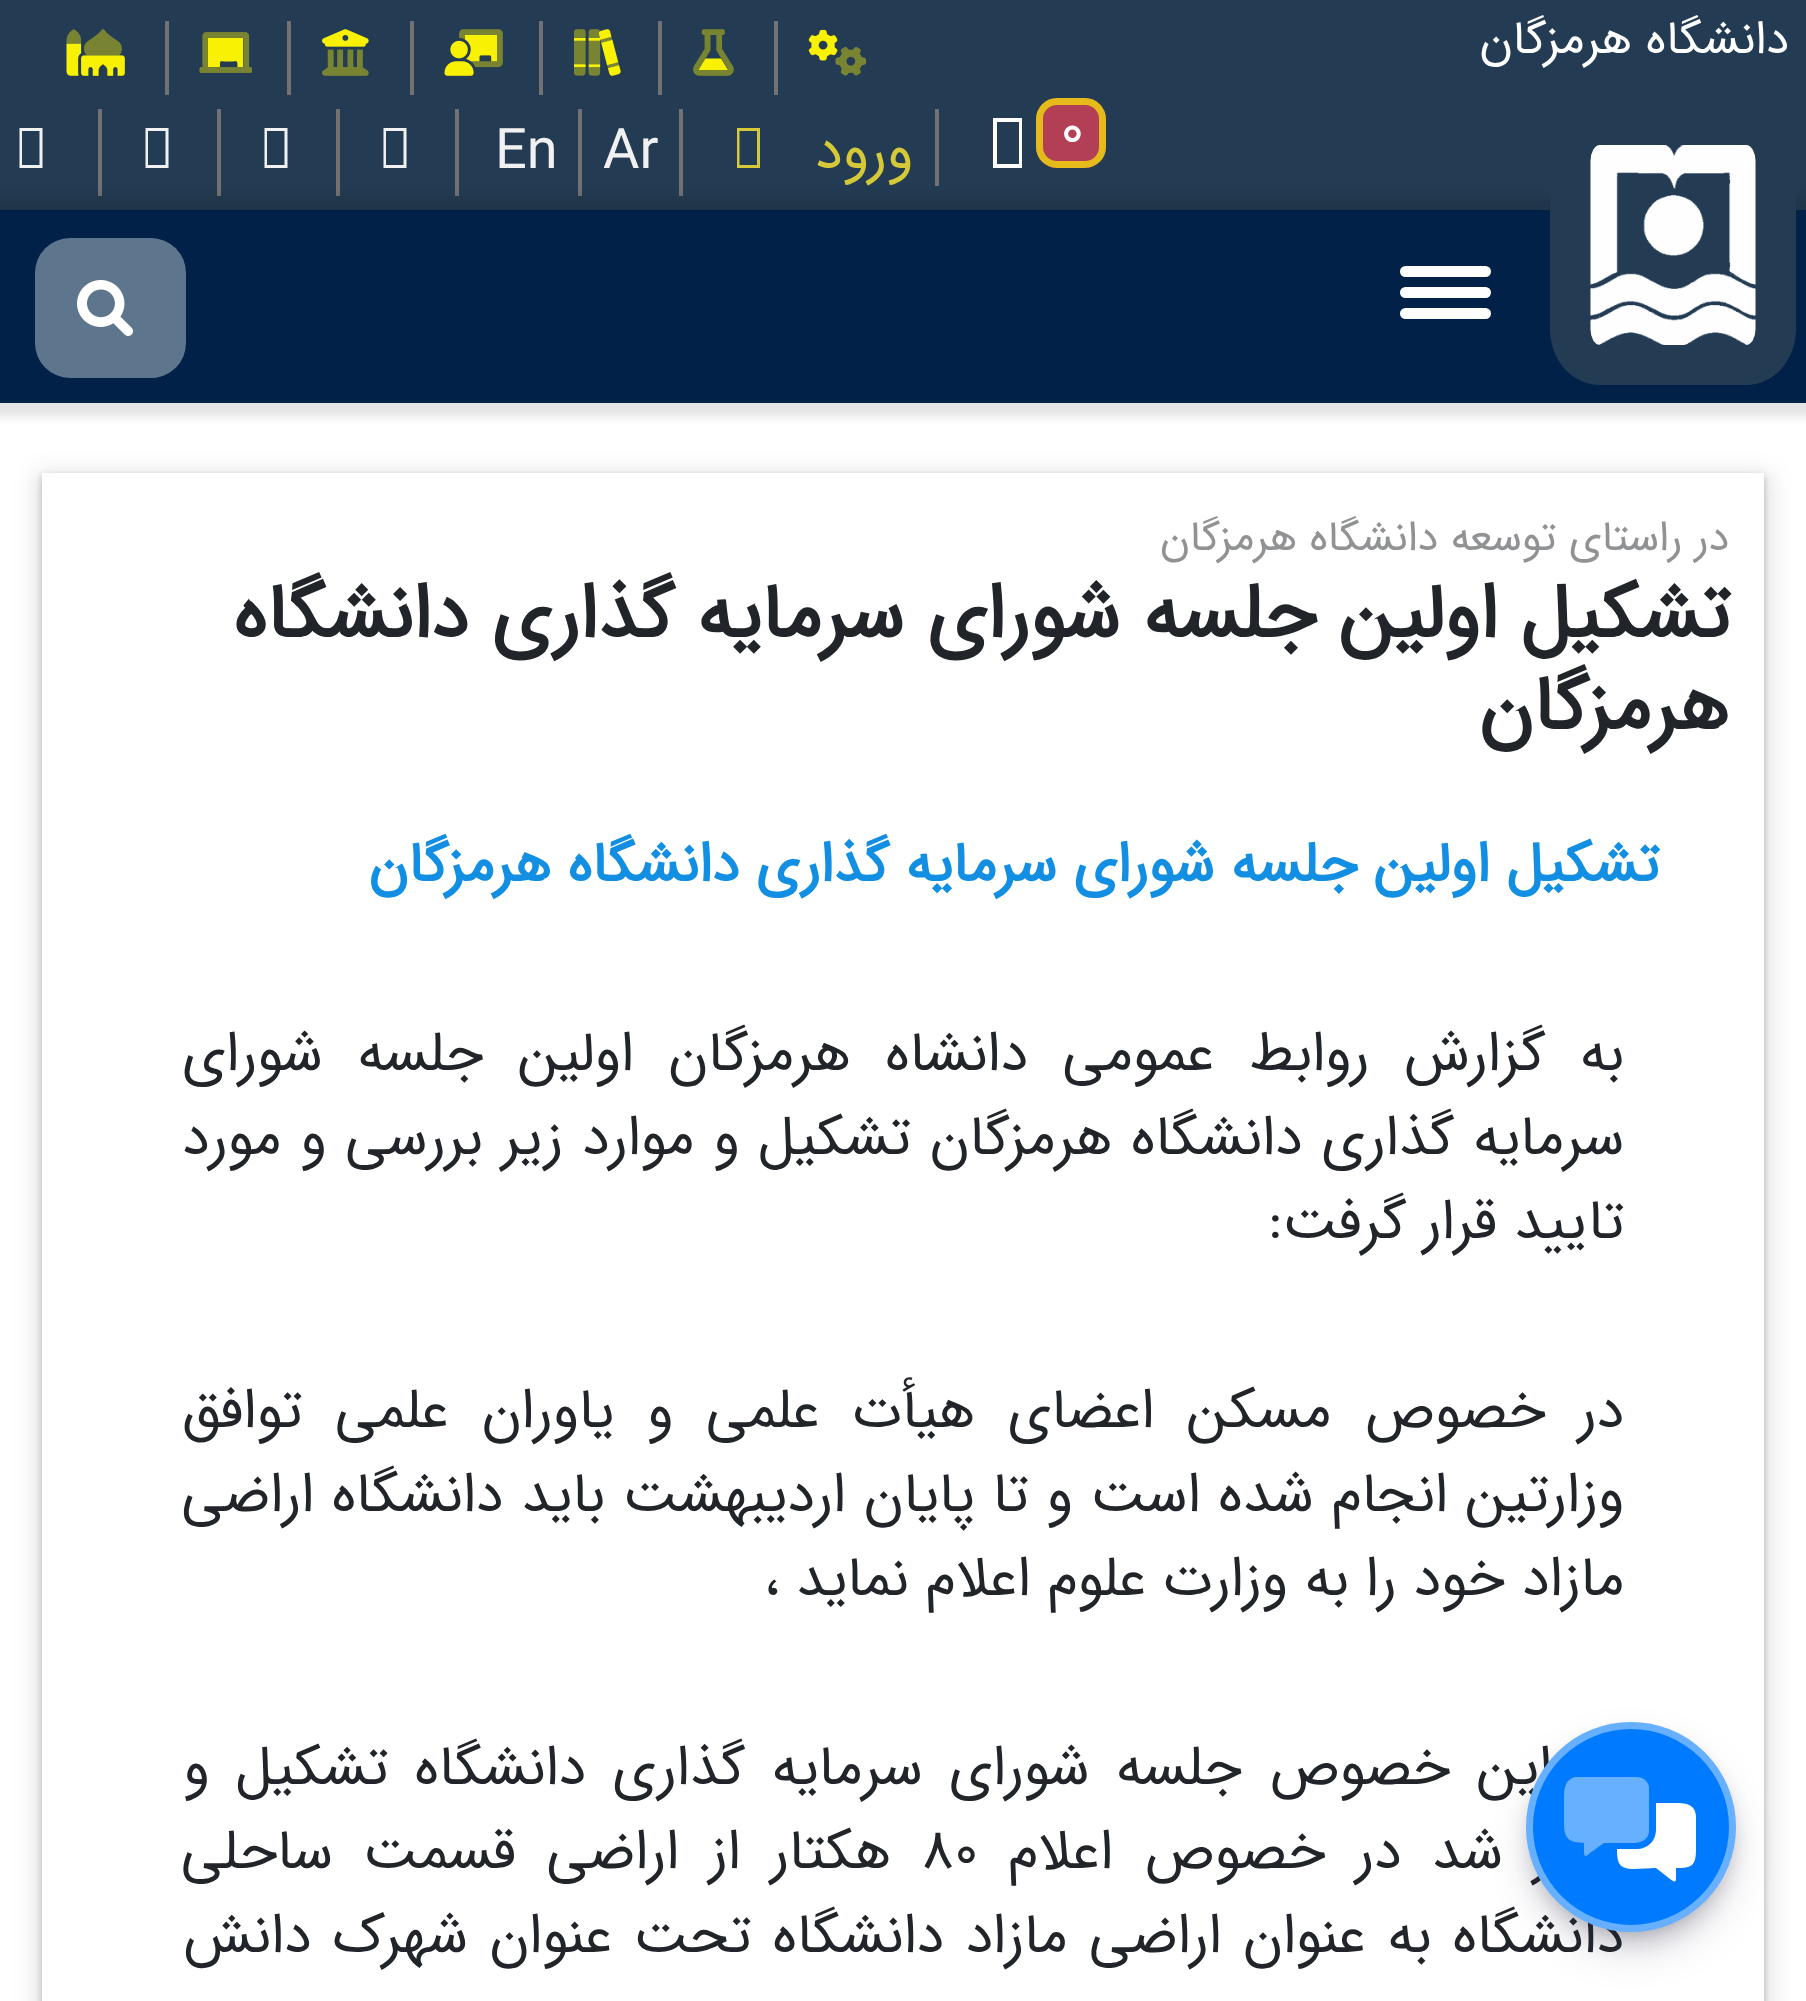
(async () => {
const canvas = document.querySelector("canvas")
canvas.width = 1806
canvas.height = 2001
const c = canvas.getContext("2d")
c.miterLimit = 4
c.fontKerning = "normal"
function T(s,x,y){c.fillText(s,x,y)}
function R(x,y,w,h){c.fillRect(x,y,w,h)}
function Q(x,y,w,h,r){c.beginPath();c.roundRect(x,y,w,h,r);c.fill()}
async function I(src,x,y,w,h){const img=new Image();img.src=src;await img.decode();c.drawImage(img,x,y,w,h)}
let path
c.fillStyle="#fff"
R(0,0,1806,2001)
c.fillStyle="#243c53"
R(0,0,1806,210)
c.direction="rtl"
c.font="46.75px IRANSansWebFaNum"
c.fillStyle="#fff"
T("دانشگاه هرمزگان",1789,53)
c.fillStyle="#737171"
R(774,21,4,74)
await I("2.png",808,29,30,32)
await I("1.png",835,47,32,29)
R(658,21,4,74)
c.fillStyle="#f9f103"
path = new Path2D("M705.5 58.5h15.5l6.5 10.5c.5 .5 .5 1 0 1h-28c-.5 0-1-.5-.5-1z")
c.fill(path)
await I("3.png",693,29,41,47)
c.fillStyle="#737171"
R(539,21,4,74)
await I("4.png",574,29,47,47)
await I("5.png",574,29,45,47)
R(410,21,4,74)
await I("7.png",444,35,53,41)
await I("6.png",459,29,44,39)
R(287,21,4,74)
await I("8.png",322,29,47,18)
await I("9.png",322,49,47,27)
R(165,21,4,74)
c.fillStyle="#f9f103"
path = new Path2D("M243 38v29h-5.5c0-8 0-5.5-9-5.5c-9 0-8.5-2.5-8.5 5.5h-12v-29z")
c.fill(path)
await I("10.png",199,32,53,41)
await I("12.png",66,43,59,33)
await I("11.png",66,29,56,27)
c.fillStyle="#737171"
R(935,109,4,77)
R(679,109,4,87)
R(578,109,4,87)
R(455,109,4,87)
R(336,109,4,87)
R(217,109,4,87)
R(98,109,4,87)
c.fillStyle="#0000001a"
c.filter="blur(5px)"
c.beginPath()
c.rect(-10,196,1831,221)
c.fill()
c.filter="none"
c.fillStyle="#012148"
R(0,210,1806,193)
c.fillStyle="#243c53"
path = new Path2D("M1600 105h146c28 0 50 25 50 56v168c0 31-22 56-50 56h-146c-28 0-50-25-50-56v-168c0-31 22-56 50-56z")
c.fill(path)
await I("13.png",1590,145,166,200)
c.fillStyle="#b23f55"
Q(1036,98,70,70,21)
c.beginPath()
c.roundRect(1039.5,101.5,63,63,17.5)
c.strokeStyle="#f9f103b3"
c.lineWidth=7
c.stroke()
c.direction="ltr"
c.font="56px IRANSansWebFaNum"
c.fillStyle="#fff"
T("0",1060,147)
path = new Path2D("M993 168v-50h29v50zm4-4h22v-42h-22z")
c.fill(path)
c.direction="rtl"
c.fillStyle="#d5c938"
T("ورود",913,168)
path = new Path2D("M737 168v-40h23v40zm2.5-3h17.5v-34h-17.5z")
c.fill(path)
c.direction="ltr"
c.fillStyle="#f1f1f1"
T("Ar",603,168)
T("En",495,168)
path = new Path2D("M383.5 168v-40h23v40zm2.5-3h17.5v-34h-17.5z")
c.fill(path)
path = new Path2D("M264.5 168v-40h23v40zm2.5-3h17.5v-34h-17.5z")
c.fill(path)
path = new Path2D("M145.5 168v-40h23v40zm2.5-3h17.5v-34h-17.5z")
c.fill(path)
path = new Path2D("M19.5 168v-40h23v40zm2.5-3h17.5v-34h-17.5z")
c.fill(path)
c.fillStyle="#fff"
Q(1400,266,91,11,5.5)
Q(1400,287,91,11,5.5)
Q(1400,308,91,11,5.5)
c.fillStyle="#5d758d"
Q(35,238,151,140,35)
c.save()
c.beginPath()
c.roundRect(35,238,151,140,35)
c.clip()
c.beginPath()
c.arc(144,347,35,0,7)
c.fill()
c.restore()
await I("14.png",77,280,56,56)
c.save()
path = new Path2D("M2 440h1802v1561h-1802zm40 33h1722v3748h-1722z")
c.clip(path,"evenodd")
c.fillStyle="#3c404326"
c.filter="blur(10.5px)"
c.beginPath()
c.rect(35,473,1736,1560)
c.fill()
c.filter="none"
c.restore()
c.save()
path = new Path2D("M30 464h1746v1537h-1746zm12 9h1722v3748h-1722z")
c.clip(path,"evenodd")
c.fillStyle="#3c40434d"
c.filter="blur(3.5px)"
c.beginPath()
c.rect(42,476,1722,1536)
c.fill()
c.filter="none"
c.restore()
c.direction="rtl"
c.font="42px IRANSansWebFaNum"
c.fillStyle="#909294"
T("در راستای توسعه دانشگاه هرمزگان",1729,550)
c.font="bold 76.8px IRANSansWebFaNum"
c.fillStyle="#212529"
T("تشکیل اولین جلسه شورای سرمایه گذاری دانشگاه",1730,637)
T("هرمزگان",1729,729)
c.font="bold 56px IRANSansWebFaNum"
c.fillStyle="#128fe3"
T("تشکیل اولین جلسه شورای سرمایه گذاری دانشگاه هرمزگان",1659,881)
c.wordSpacing="17.75px"
c.font="56px IRANSansWebFaNum"
c.fillStyle="#212529"
T("به گزارش روابط عمومی دانشاه هرمزگان اولین جلسه شورای",1624,1070)
c.wordSpacing="2px"
T("سرمایه گذاری دانشگاه هرمزگان تشکیل و موارد زیر بررسی و مورد",1624,1154)
c.wordSpacing="0px"
T("تایید قرار گرفت:",1624,1238)
c.wordSpacing="15.75px"
T("در خصوص مسکن اعضای هیأت علمی و یاوران علمی توافق",1624,1427)
c.wordSpacing="1px"
T("وزارتین انجام شده است و تا پایان اردیبهشت باید دانشگاه اراضی",1624,1511)
c.wordSpacing="0px"
T("مازاد خود را به وزارت علوم اعلام نماید ،",1624,1595)
c.wordSpacing="9.5px"
T("در این خصوص جلسه شورای سرمایه گذاری دانشگاه تشکیل و",1624,1784)
c.wordSpacing="13.5px"
T("مقرر شد در خصوص اعلام",1624,1868)
c.wordSpacing="0px"
c.direction="ltr"
T("۸۰",921,1868)
c.wordSpacing="13.5px"
c.direction="rtl"
T("هکتار از اراضی قسمت ساحلی",891,1868)
c.wordSpacing="4.5px"
T("دانشگاه به عنوان اراضی مازاد دانشگاه تحت عنوان شهرک دانش",1624,1952)
c.fillStyle="#0000004d"
c.filter="blur(12px)"
c.beginPath()
c.roundRect(1537,1743,189,189,94.5)
c.fill()
c.filter="none"
c.fillStyle="#32325d40"
c.filter="blur(21px)"
c.beginPath()
c.roundRect(1533,1750,196,196,98)
c.fill()
c.filter="none"
c.fillStyle="#007bff"
c.beginPath()
c.arc(1631,1827,101.5,0,7)
c.fill()
c.strokeStyle="#66b0ff"
c.stroke()
c.fillStyle="#fff"
path = new Path2D("M1696 1816v33c0 17-4 19-20 19v10c0 5-2 4-6 1l-14-11l-22 1c-15 0-17-6-17-20h20c5 0 10-2 14-6c3-3 5-8 5-14v-26h18c10 0 21 0 22 13z")
c.fill(path)
c.fillStyle="#66b0ff"
path = new Path2D("M1637 1777h-62c-10 3-11 11-11 20v26c0 9 1 17 11 19l9 1v9c0 6 3 4 6 1l14-10h22c9 0 21 1 23-11v-45c-1-6-6-10-12-10z")
c.fill(path)
})()
